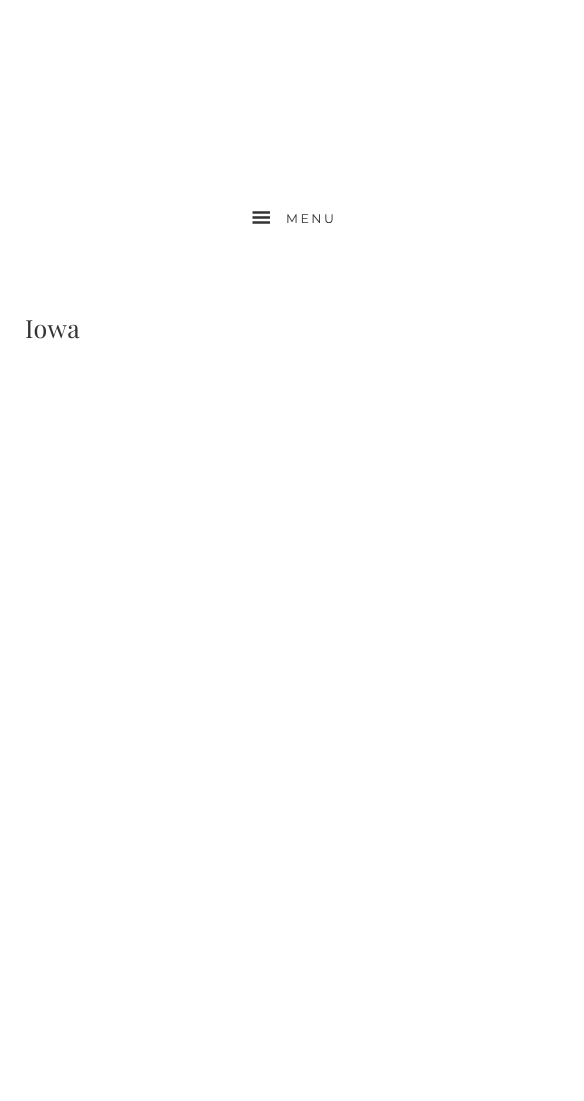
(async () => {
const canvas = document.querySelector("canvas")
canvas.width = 584
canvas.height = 1101
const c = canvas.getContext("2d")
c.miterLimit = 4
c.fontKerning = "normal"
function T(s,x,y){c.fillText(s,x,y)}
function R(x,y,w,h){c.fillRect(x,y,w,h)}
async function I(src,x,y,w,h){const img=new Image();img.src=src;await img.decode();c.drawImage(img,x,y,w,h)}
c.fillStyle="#fff"
R(0,0,584,1101)
await I("1.png",252,211,18,13)
c.letterSpacing="2.5px"
c.font="12.5px Montserrat"
c.fillStyle="#333"
T("MENU",286,223)
c.letterSpacing="0.5px"
c.font="25px Playfair Display"
T("Iowa",25,338)
})()
